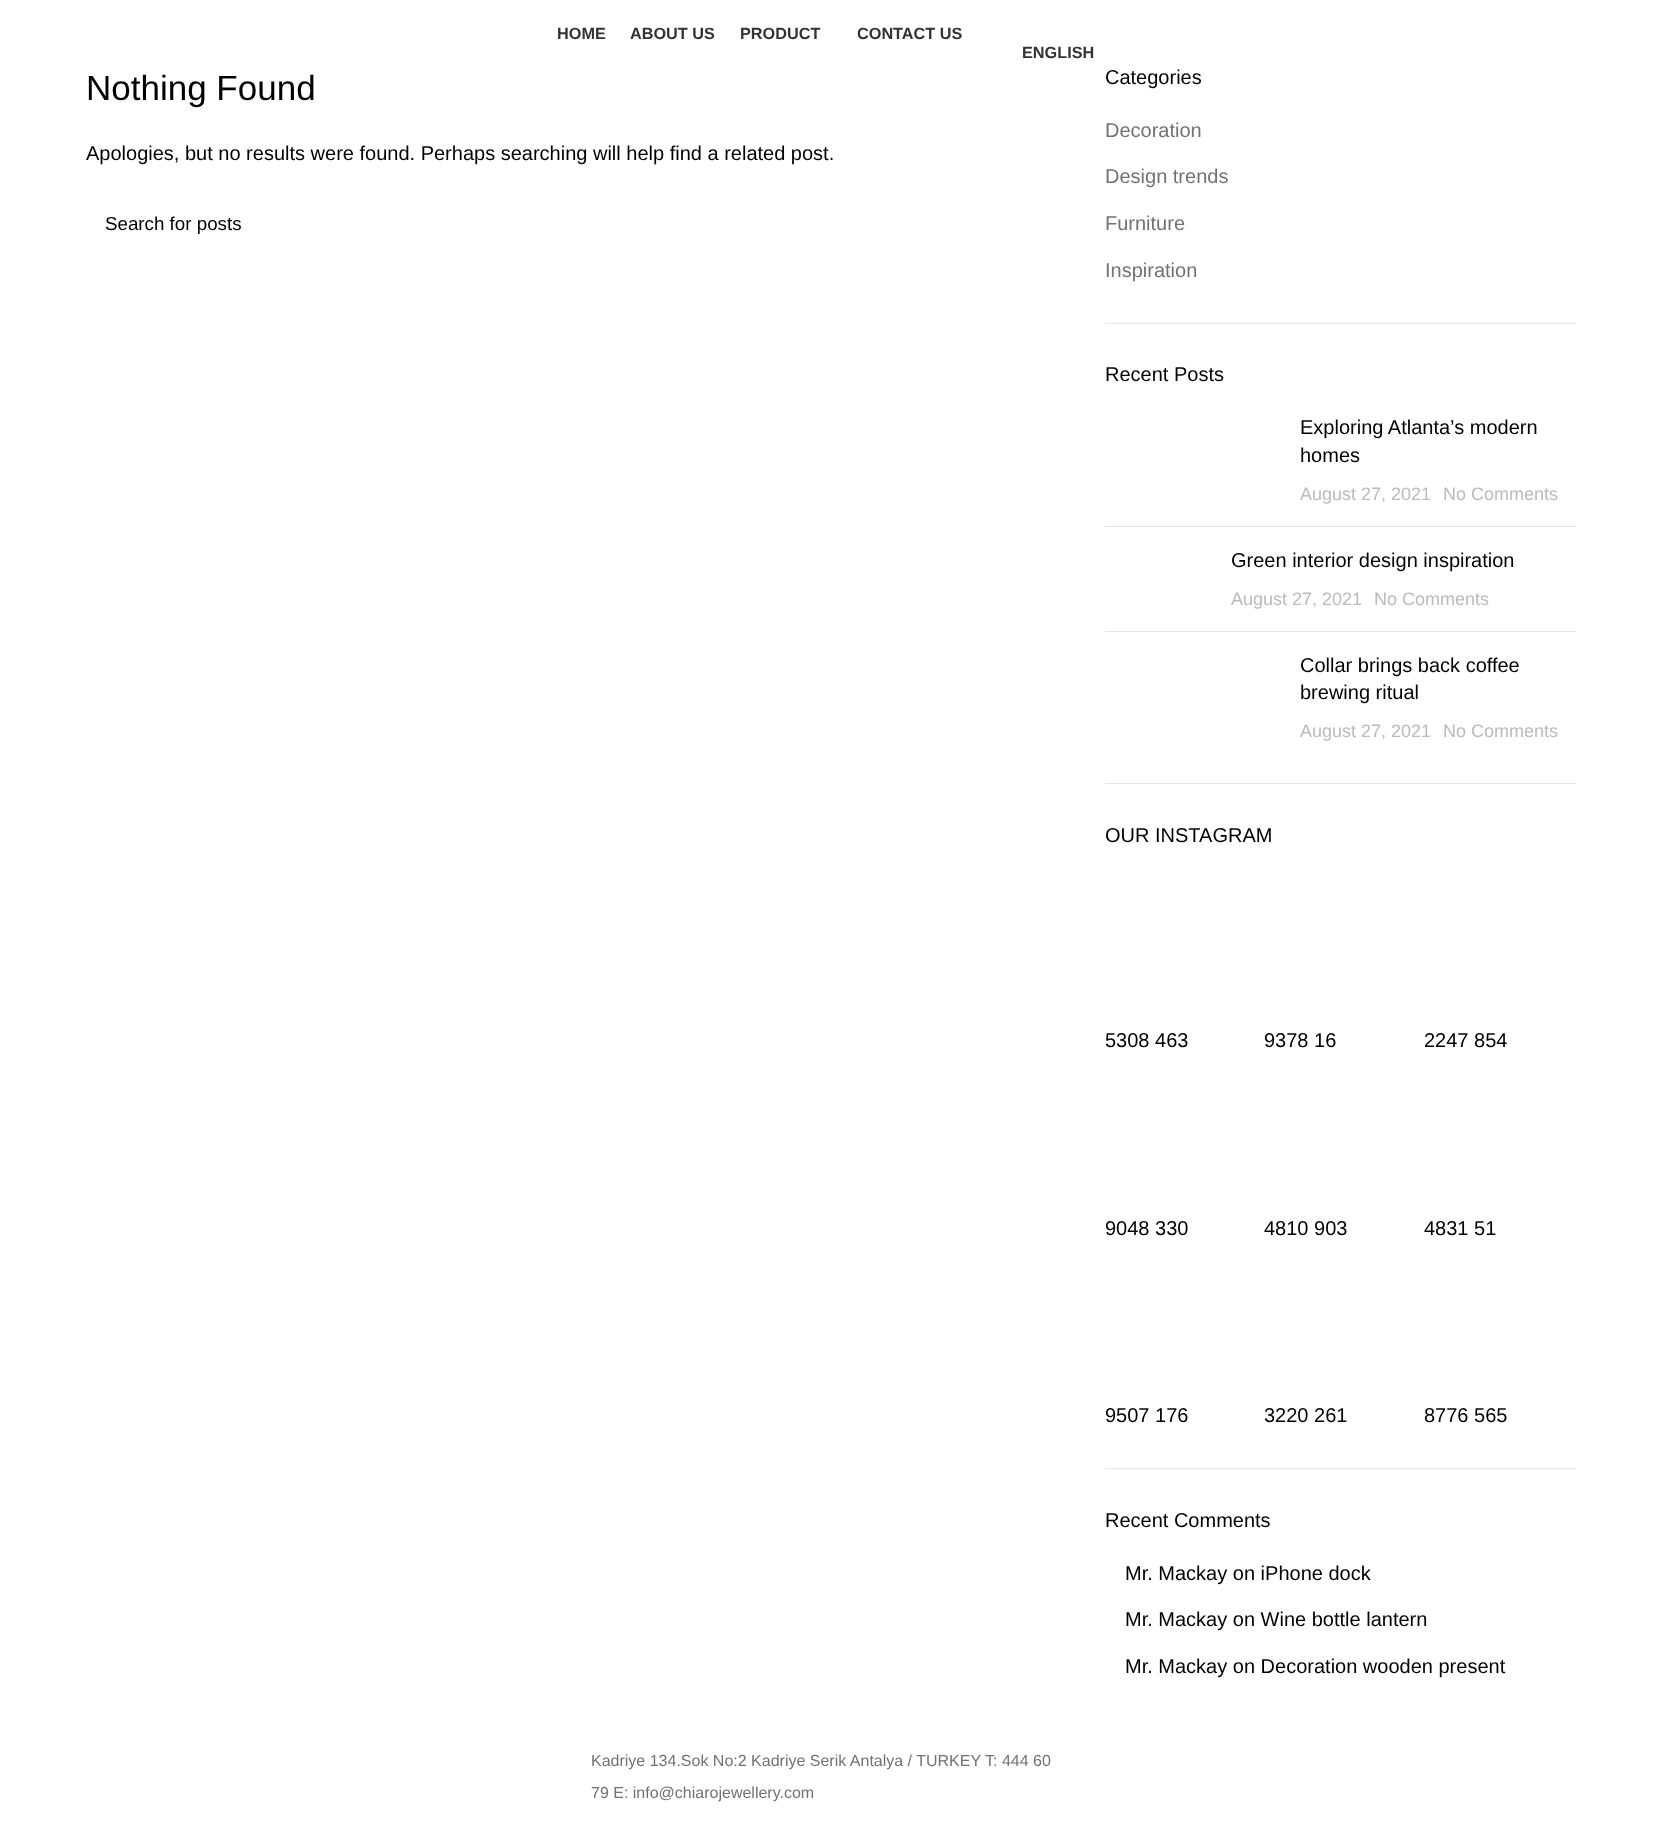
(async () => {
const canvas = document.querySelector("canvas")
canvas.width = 1662
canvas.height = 1831
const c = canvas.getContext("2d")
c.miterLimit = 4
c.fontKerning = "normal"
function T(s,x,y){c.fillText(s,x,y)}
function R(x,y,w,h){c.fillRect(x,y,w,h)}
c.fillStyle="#fff"
R(0,0,1662,1831)
c.font="bold 16.25px Liberation Sans"
c.fillStyle="#333"
T("HOME",557,39)
T("ABOUT US",630,39)
T("PRODUCT",740,39)
T("CONTACT US",857,39)
T("ENGLISH",1022,58)
c.font="35px Liberation Sans"
c.fillStyle="#000"
T("Nothing Found",86,100)
c.font="20px Liberation Sans"
T("Apologies, but no results were found. Perhaps searching will help find a related post.",86,160)
c.font="18.75px Liberation Sans"
T("Search for posts",105,230)
c.fillStyle="#e4e4e4"
R(1105,323,471,1)
c.font="20px Liberation Sans"
c.fillStyle="#000"
T("Categories",1105,84)
c.fillStyle="#727272"
T("Decoration",1105,137)
T("Design trends",1105,183)
T("Furniture",1105,230)
T("Inspiration",1105,277)
c.fillStyle="#e4e4e4"
R(1105,783,471,1)
c.fillStyle="#000"
T("Recent Posts",1105,381)
c.fillStyle="#e4e4e4"
R(1105,526,471,1)
c.fillStyle="#000"
T("Exploring Atlanta’s modern",1300,434)
T("homes",1300,462)
c.font="18px Liberation Sans"
c.fillStyle="#bbb"
T("August 27, 2021",1300,500)
T("No Comments",1443,500)
c.fillStyle="#e4e4e4"
R(1105,631,471,1)
c.font="20px Liberation Sans"
c.fillStyle="#000"
T("Green interior design inspiration",1231,567)
c.font="18px Liberation Sans"
c.fillStyle="#bbb"
T("August 27, 2021",1231,605)
T("No Comments",1374,605)
c.font="20px Liberation Sans"
c.fillStyle="#000"
T("Collar brings back coffee",1300,672)
T("brewing ritual",1300,699)
c.font="18px Liberation Sans"
c.fillStyle="#bbb"
T("August 27, 2021",1300,737)
T("No Comments",1443,737)
c.fillStyle="#e4e4e4"
R(1105,1468,471,1)
c.font="20px Liberation Sans"
c.fillStyle="#000"
T("OUR INSTAGRAM",1105,842)
T("5308 463",1105,1047)
T("9378 16",1264,1047)
T("2247 854",1424,1047)
T("9048 330",1105,1235)
T("4810 903",1264,1235)
T("4831 51",1424,1235)
T("9507 176",1105,1422)
T("3220 261",1264,1422)
T("8776 565",1424,1422)
T("Recent Comments",1105,1527)
T("Mr. Mackay on iPhone dock",1125,1580)
T("Mr. Mackay on Wine bottle lantern",1125,1626)
T("Mr. Mackay on Decoration wooden present",1125,1673)
c.font="16px Liberation Sans"
c.fillStyle="#727272"
T("Kadriye 134.Sok No:2 Kadriye Serik Antalya / TURKEY T: 444 60",591,1766)
T("79 E: info@chiarojewellery.com",591,1798)
})()
